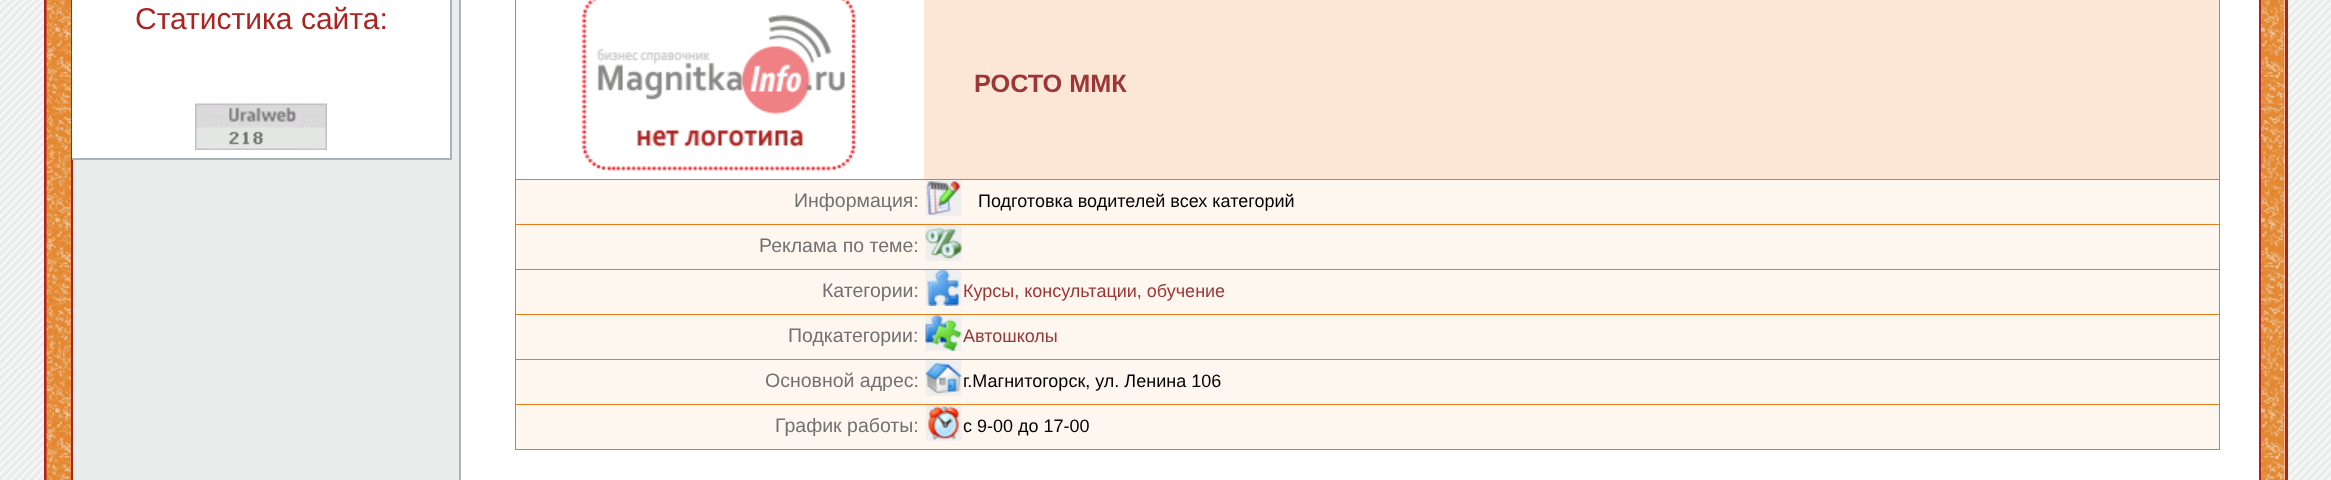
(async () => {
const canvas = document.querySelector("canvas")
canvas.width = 2331
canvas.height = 480
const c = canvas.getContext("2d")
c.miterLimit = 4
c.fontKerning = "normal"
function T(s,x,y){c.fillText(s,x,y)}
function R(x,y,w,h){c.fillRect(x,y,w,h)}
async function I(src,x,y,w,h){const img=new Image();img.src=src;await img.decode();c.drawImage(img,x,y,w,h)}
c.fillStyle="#fff"
R(0,0,2331,480)
await I("1.png",0,0,2331,480)
c.fillStyle="#ab2421"
R(2285,0,3,480)
R(44,0,3,480)
await I("2.png",46,0,2239,480)
c.fillStyle="#ebecec"
R(73,0,386,480)
c.fillStyle="#ab2421"
R(2259,0,2,480)
R(71,0,2,480)
c.fillStyle="#fff"
R(72,0,378,158)
c.fillStyle="#acb3b8"
R(450,0,2,159)
R(72,158,380,2)
c.font="30px Liberation Sans"
c.fillStyle="#ab2421"
T("Статистика сайта:",135,29)
await I("3.png",195,103,132,47)
c.fillStyle="#fff"
R(461,0,1798,480)
c.fillStyle="#acb3b8"
R(459,0,2,480)
c.fillStyle="#e57d1b"
R(515,0,1705,450)
c.fillStyle="#fce7d6"
R(924,0,1295,179)
c.fillStyle="#fff"
R(516,0,408,179)
await I("4.png",582,0,275,171)
c.font="bold 25.25px Liberation Sans"
c.fillStyle="#9d3636"
T("РОСТО ММК",974,92)
c.fillStyle="#fef7ef"
R(516,180,1703,44)
c.font="19.5px Liberation Sans"
c.fillStyle="#717171"
T("Информация:",794,207)
await I("5.png",925,180,37,36)
c.font="18px Liberation Sans"
c.fillStyle="#000"
T("Подготовка водителей всех категорий",978,207)
c.fillStyle="#fef7ef"
R(516,225,1703,44)
c.font="19.5px Liberation Sans"
c.fillStyle="#717171"
T("Реклама по теме:",759,252)
await I("6.png",925,225,37,36)
c.fillStyle="#fef7ef"
R(516,270,1703,44)
c.fillStyle="#717171"
T("Категории:",822,297)
await I("7.png",925,270,37,36)
c.font="18px Liberation Sans"
c.fillStyle="#9d3636"
T("Курсы, консультации, обучение",963,297)
c.fillStyle="#fef7ef"
R(516,315,1703,44)
c.font="19.5px Liberation Sans"
c.fillStyle="#717171"
T("Подкатегории:",788,342)
await I("8.png",925,315,37,36)
c.font="18px Liberation Sans"
c.fillStyle="#9d3636"
T("Автошколы",963,342)
c.fillStyle="#fef7ef"
R(516,360,1703,44)
c.font="19.5px Liberation Sans"
c.fillStyle="#717171"
T("Основной адрес:",765,387)
await I("9.png",925,360,37,36)
c.font="18px Liberation Sans"
c.fillStyle="#000"
T("г.Магнитогорск, ул. Ленина 106",963,387)
c.fillStyle="#fef7ef"
R(516,405,1703,44)
c.font="19.5px Liberation Sans"
c.fillStyle="#717171"
T("График работы:",775,432)
await I("10.png",925,405,37,36)
c.font="18px Liberation Sans"
c.fillStyle="#000"
T("с 9-00 до 17-00",963,432)
})()
